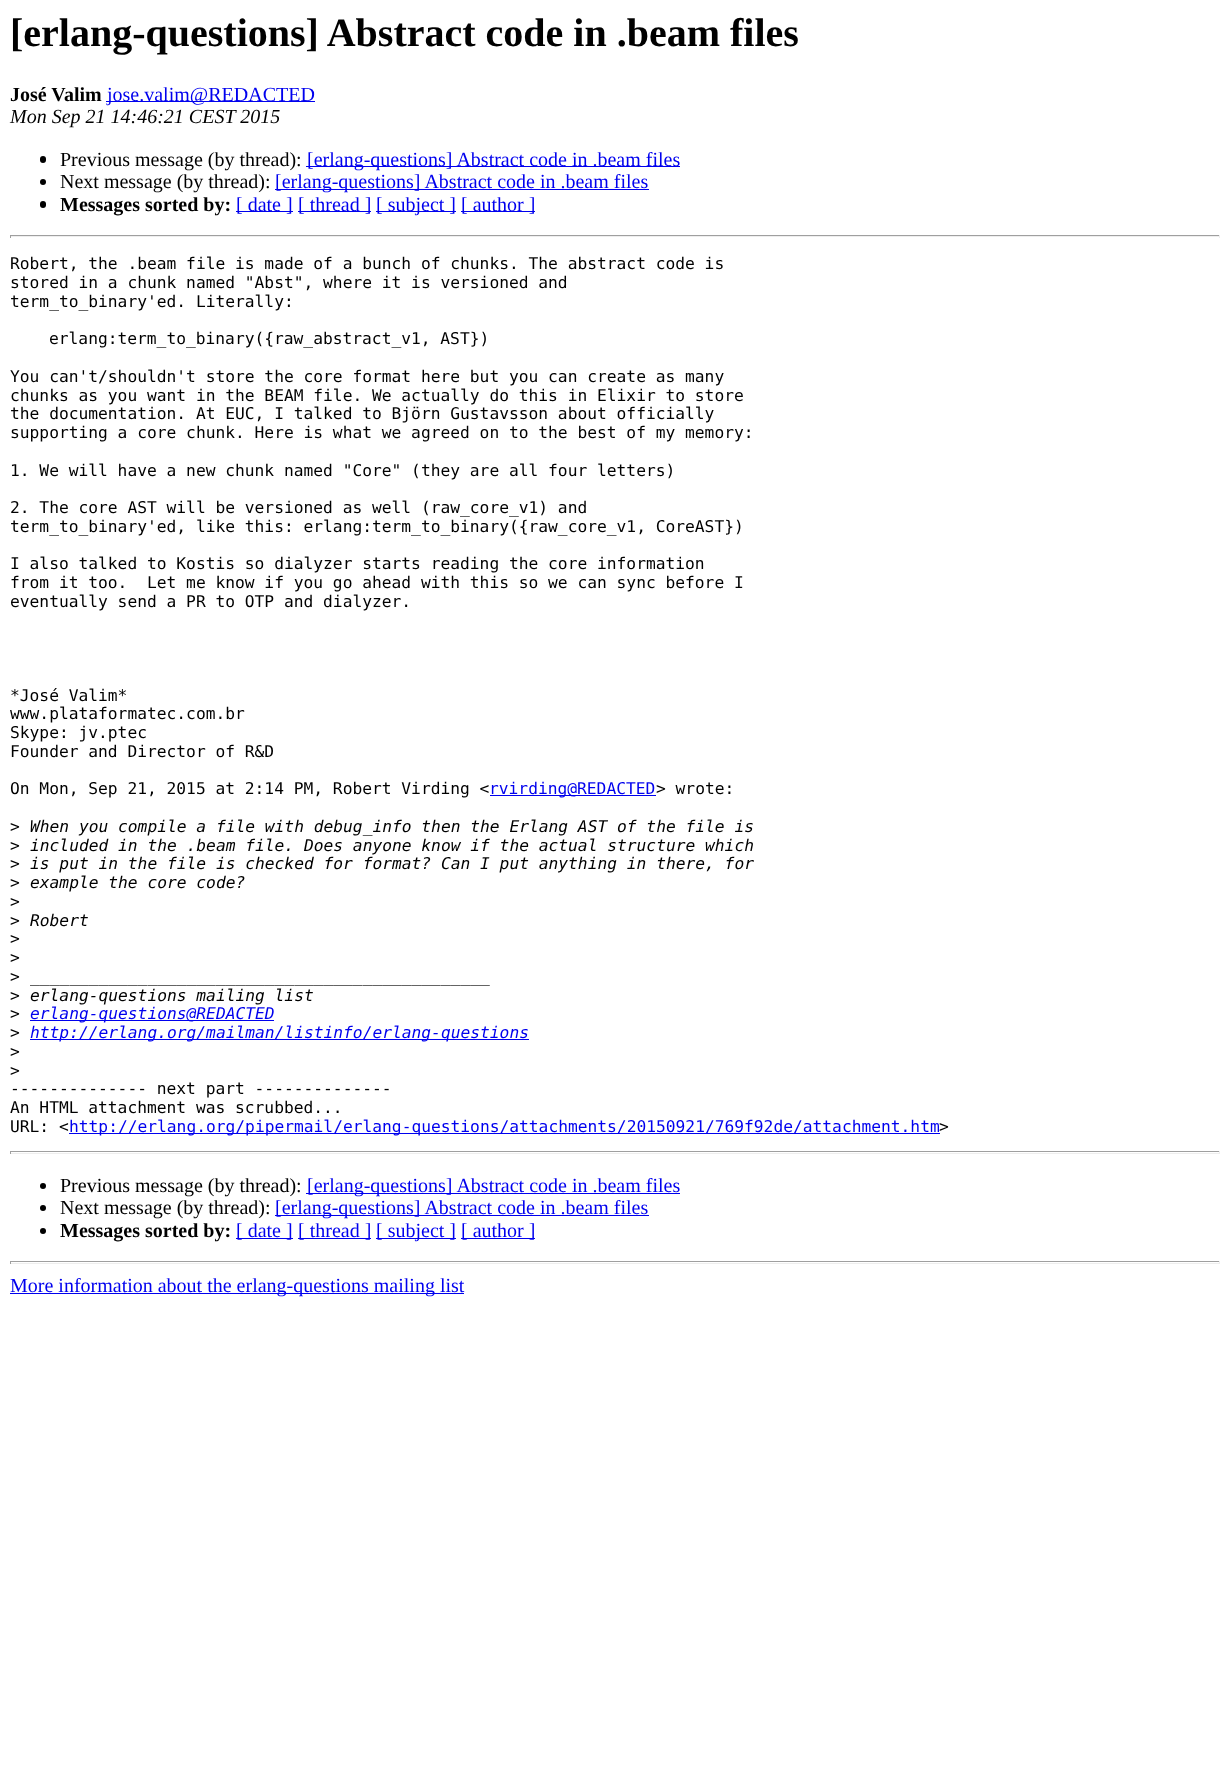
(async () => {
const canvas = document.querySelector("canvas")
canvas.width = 1230
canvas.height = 1773
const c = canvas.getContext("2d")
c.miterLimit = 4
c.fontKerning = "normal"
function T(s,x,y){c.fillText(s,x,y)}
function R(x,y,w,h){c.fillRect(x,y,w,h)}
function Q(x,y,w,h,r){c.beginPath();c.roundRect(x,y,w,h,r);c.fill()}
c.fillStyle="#fff"
R(0,0,1230,1773)
c.font="bold 40px Liberation Serif"
c.fillStyle="#000"
T("[erlang-questions] Abstract code in .beam files",10,46)
c.font="bold 20px Liberation Serif"
T("José Valim",10,101)
c.fillStyle="#00e"
R(106,101,209,1)
c.font="20px Liberation Serif"
T("jose.valim@REDACTED",107,101)
c.font="italic 20px Liberation Serif"
c.fillStyle="#000"
T("Mon Sep 21 14:46:21 CEST 2015",10,123)
Q(40,156,6,7,3)
c.font="20px Liberation Serif"
T("Previous message (by thread):",60,166)
c.fillStyle="#00e"
R(306,166,374,1)
T("[erlang-questions] Abstract code in .beam files",307,166)
c.fillStyle="#000"
c.beginPath()
c.arc(43,182,3,0,7)
c.fill()
T("Next message (by thread):",60,188)
c.fillStyle="#00e"
R(275,189,374,1)
T("[erlang-questions] Abstract code in .beam files",275,188)
c.fillStyle="#000"
Q(40,201,6,7,3)
c.font="bold 20px Liberation Serif"
T("Messages sorted by:",60,211)
c.fillStyle="#00e"
R(236,211,57,1)
c.font="20px Liberation Serif"
T("[ date ]",236,211)
R(298,211,73,1)
T("[ thread ]",298,211)
R(376,211,80,1)
T("[ subject ]",376,211)
R(461,211,74,1)
T("[ author ]",461,211)
c.fillStyle="#9f9f9f"
R(10,235,1210,1)
c.fillStyle="#eee"
R(1219,235,1,3)
R(10,236,1210,1)
c.fillStyle="#9f9f9f"
R(10,235,1,3)
c.font="16.25px DejaVu Sans Mono"
c.fillStyle="#000"
T("Robert, the .beam file is made of a bunch of chunks. The abstract code is",10,269)
T("stored in a chunk named \"Abst\", where it is versioned and",10,288)
T("term_to_binary'ed. Literally:",10,307)
T("erlang:term_to_binary({raw_abstract_v1, AST})",49,344)
T("You can't/shouldn't store the core format here but you can create as many",10,382)
T("chunks as you want in the BEAM file. We actually do this in Elixir to store",10,401)
T("the documentation. At EUC, I talked to Björn Gustavsson about officially",10,419)
T("supporting a core chunk. Here is what we agreed on to the best of my memory:",10,438)
T("1. We will have a new chunk named \"Core\" (they are all four letters)",10,476)
T("2. The core AST will be versioned as well (raw_core_v1) and",10,513)
T("term_to_binary'ed, like this: erlang:term_to_binary({raw_core_v1, CoreAST})",10,532)
T("I also talked to Kostis so dialyzer starts reading the core information",10,569)
T("from it too.  Let me know if you go ahead with this so we can sync before I",10,588)
T("eventually send a PR to OTP and dialyzer.",10,607)
T("*José Valim*",10,701)
T("www.plataformatec.com.br",10,719)
T("Skype: jv.ptec",10,738)
T("Founder and Director of R&D",10,757)
T("On Mon, Sep 21, 2015 at 2:14 PM, Robert Virding <",10,794)
c.fillStyle="#00e"
R(490,795,166,1)
T("rvirding@REDACTED",489,794)
c.fillStyle="#000"
T("> wrote:",656,794)
T(">",10,832)
c.font="italic 16.25px DejaVu Sans Mono"
T("When you compile a file with debug_info then the Erlang AST of the file is",30,832)
c.font="16.25px DejaVu Sans Mono"
T(">",10,851)
c.font="italic 16.25px DejaVu Sans Mono"
T("included in the .beam file. Does anyone know if the actual structure which",30,851)
c.font="16.25px DejaVu Sans Mono"
T(">",10,869)
c.font="italic 16.25px DejaVu Sans Mono"
T("is put in the file is checked for format? Can I put anything in there, for",30,869)
c.font="16.25px DejaVu Sans Mono"
T(">",10,888)
c.font="italic 16.25px DejaVu Sans Mono"
T("example the core code?",30,888)
c.font="16.25px DejaVu Sans Mono"
T(">",10,907)
T(">",10,926)
c.font="italic 16.25px DejaVu Sans Mono"
T("Robert",30,926)
c.font="16.25px DejaVu Sans Mono"
T(">",10,944)
T(">",10,963)
T(">",10,982)
c.font="italic 16.25px DejaVu Sans Mono"
T("_______________________________________________",30,982)
c.font="16.25px DejaVu Sans Mono"
T(">",10,1001)
c.font="italic 16.25px DejaVu Sans Mono"
T("erlang-questions mailing list",30,1001)
c.font="16.25px DejaVu Sans Mono"
T(">",10,1019)
c.fillStyle="#00e"
R(30,1020,244,1)
c.font="italic 16.25px DejaVu Sans Mono"
T("erlang-questions@REDACTED",30,1019)
c.font="16.25px DejaVu Sans Mono"
c.fillStyle="#000"
T(">",10,1038)
c.fillStyle="#00e"
R(30,1039,499,1)
c.font="italic 16.25px DejaVu Sans Mono"
T("http://erlang.org/mailman/listinfo/erlang-questions",30,1038)
c.font="16.25px DejaVu Sans Mono"
c.fillStyle="#000"
T(">",10,1057)
T(">",10,1076)
T("-------------- next part --------------",10,1094)
T("An HTML attachment was scrubbed...",10,1113)
T("URL: <",10,1132)
c.fillStyle="#00e"
R(69,1133,871,1)
T("http://erlang.org/pipermail/erlang-questions/attachments/20150921/769f92de/attachment.htm",69,1132)
c.fillStyle="#000"
T(">",939,1132)
c.fillStyle="#9f9f9f"
R(10,1151,1210,1)
c.fillStyle="#eee"
R(1219,1151,1,3)
R(10,1153,1210,1)
c.fillStyle="#9f9f9f"
R(10,1151,1,3)
c.fillStyle="#000"
c.beginPath()
c.arc(43,1186,3,0,7)
c.fill()
c.font="20px Liberation Serif"
T("Previous message (by thread):",60,1192)
c.fillStyle="#00e"
R(306,1193,374,1)
T("[erlang-questions] Abstract code in .beam files",307,1192)
c.fillStyle="#000"
c.beginPath()
c.arc(43,1208,3,0,7)
c.fill()
T("Next message (by thread):",60,1214)
c.fillStyle="#00e"
R(275,1215,374,1)
T("[erlang-questions] Abstract code in .beam files",275,1214)
c.fillStyle="#000"
c.beginPath()
c.arc(43,1231,3,0,7)
c.fill()
c.font="bold 20px Liberation Serif"
T("Messages sorted by:",60,1237)
c.fillStyle="#00e"
R(236,1238,57,1)
c.font="20px Liberation Serif"
T("[ date ]",236,1237)
R(298,1238,73,1)
T("[ thread ]",298,1237)
R(376,1238,80,1)
T("[ subject ]",376,1237)
R(461,1238,74,1)
T("[ author ]",461,1237)
c.fillStyle="#9f9f9f"
R(10,1261,1210,1)
c.fillStyle="#eee"
R(1219,1261,1,3)
R(10,1263,1210,1)
c.fillStyle="#9f9f9f"
R(10,1261,1,3)
c.fillStyle="#00e"
R(10,1293,454,1)
T("More information about the erlang-questions mailing list",10,1292)
})()
